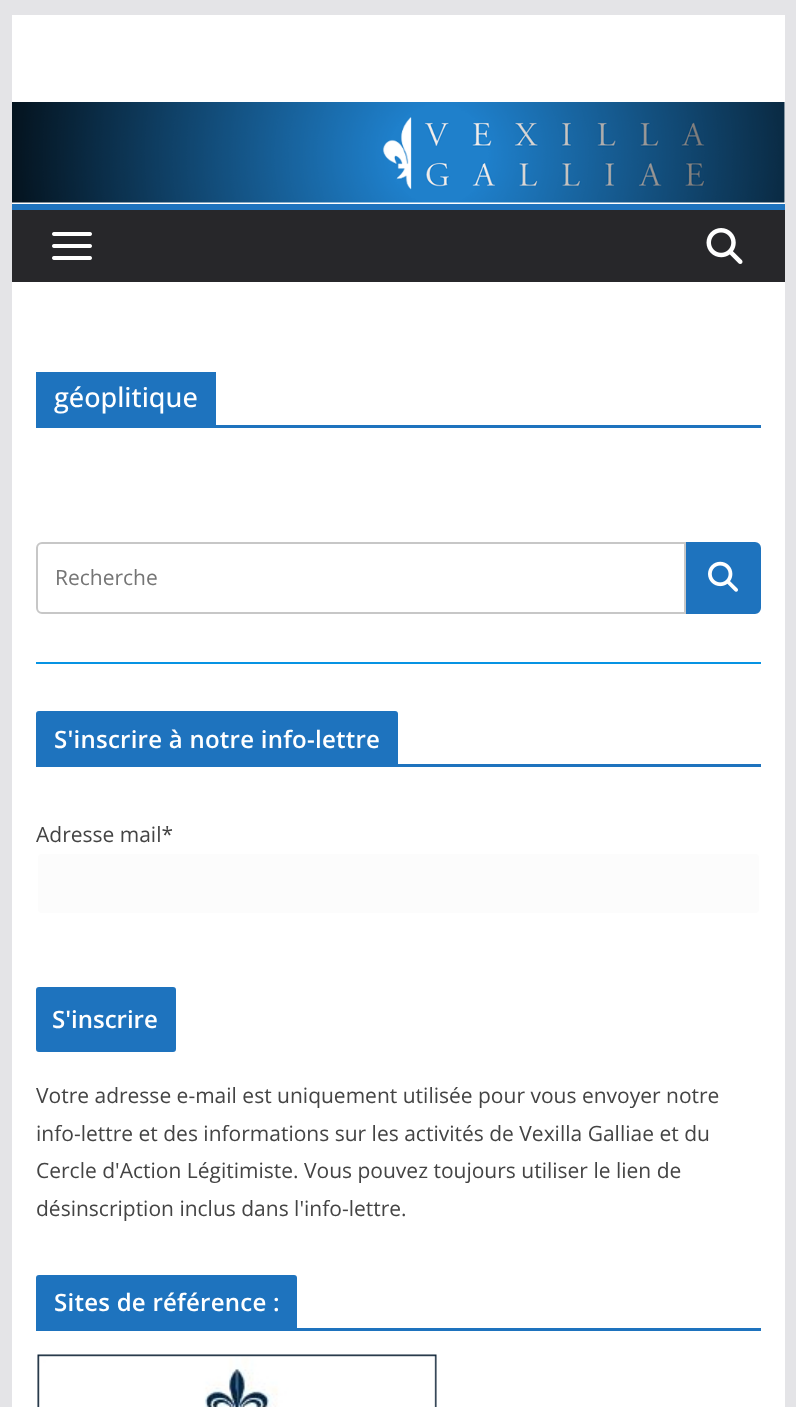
(async () => {
const canvas = document.querySelector("canvas")
canvas.width = 796
canvas.height = 1407
const c = canvas.getContext("2d")
c.miterLimit = 4
c.fontKerning = "normal"
function T(s,x,y){c.fillText(s,x,y)}
function R(x,y,w,h){c.fillRect(x,y,w,h)}
async function I(src,x,y,w,h){const img=new Image();img.src=src;await img.decode();c.drawImage(img,x,y,w,h)}
c.fillStyle="#e4e4e7"
R(0,0,796,1407)
c.fillStyle="#fff"
R(12,15,773,189)
await I("1.png",12,102,773,101)
c.fillStyle="#27272a"
R(12,210,773,72)
c.fillStyle="#1e73be"
R(12,204,773,6)
await I("2.png",52,232,40,28)
await I("3.png",706,228,37,36)
c.fillStyle="#fff"
R(12,282,773,1125)
c.fillStyle="#1e73be"
R(36,425,725,3)
R(36,372,180,53)
c.font="500 27px Open Sans"
c.fillStyle="#fff"
T("géoplitique",54,407)
c.beginPath()
c.roundRect(37,543,648,70,[5,0,0,5])
c.strokeStyle="#c7c7c7"
c.lineWidth=2
c.stroke()
c.font="21px Open Sans"
c.fillStyle="#757575"
T("Recherche",55,585)
c.fillStyle="#1e73be"
c.beginPath()
c.roundRect(687,543,73,70,[0,5,5,0])
c.fill()
c.strokeStyle="#1e73be"
c.stroke()
await I("4.png",708,561,30,31)
c.fillStyle="#0693e3"
R(36,662,725,2)
c.fillStyle="#1e73be"
R(36,764,725,3)
c.beginPath()
c.roundRect(36,711,362,53,[3,3,0,0])
c.fill()
c.letterSpacing="0.25px"
c.font="600 24px Open Sans"
c.fillStyle="#fff"
T("S'inscrire à notre info-lettre",54,748)
c.letterSpacing="0px"
c.font="21px Open Sans"
c.fillStyle="#444"
T("Adresse mail*",36,842)
c.fillStyle="#fcfcfc"
c.beginPath()
c.roundRect(37,853,723,61,5)
c.fill()
c.strokeStyle="#fff"
c.stroke()
c.fillStyle="#1e73be"
c.beginPath()
c.roundRect(37,988,138,63,2)
c.fill()
c.strokeStyle="#1e73be"
c.stroke()
c.font="600 24px Open Sans"
c.fillStyle="#fff"
T("S'inscrire",52,1028)
c.font="21px Open Sans"
c.fillStyle="#444"
T("Votre adresse e-mail est uniquement utilisée pour vous envoyer notre",36,1103)
T("info-lettre et des informations sur les activités de Vexilla Galliae et du",36,1141)
T("Cercle d'Action Légitimiste. Vous pouvez toujours utiliser le lien de",36,1178)
T("désinscription inclus dans l'info-lettre.",36,1216)
c.fillStyle="#1e73be"
R(36,1328,725,3)
c.beginPath()
c.roundRect(36,1275,261,53,[3,3,0,0])
c.fill()
c.letterSpacing="0.25px"
c.font="600 24px Open Sans"
c.fillStyle="#fff"
T("Sites de référence :",54,1311)
await I("5.png",37,1354,400,53)
})()
